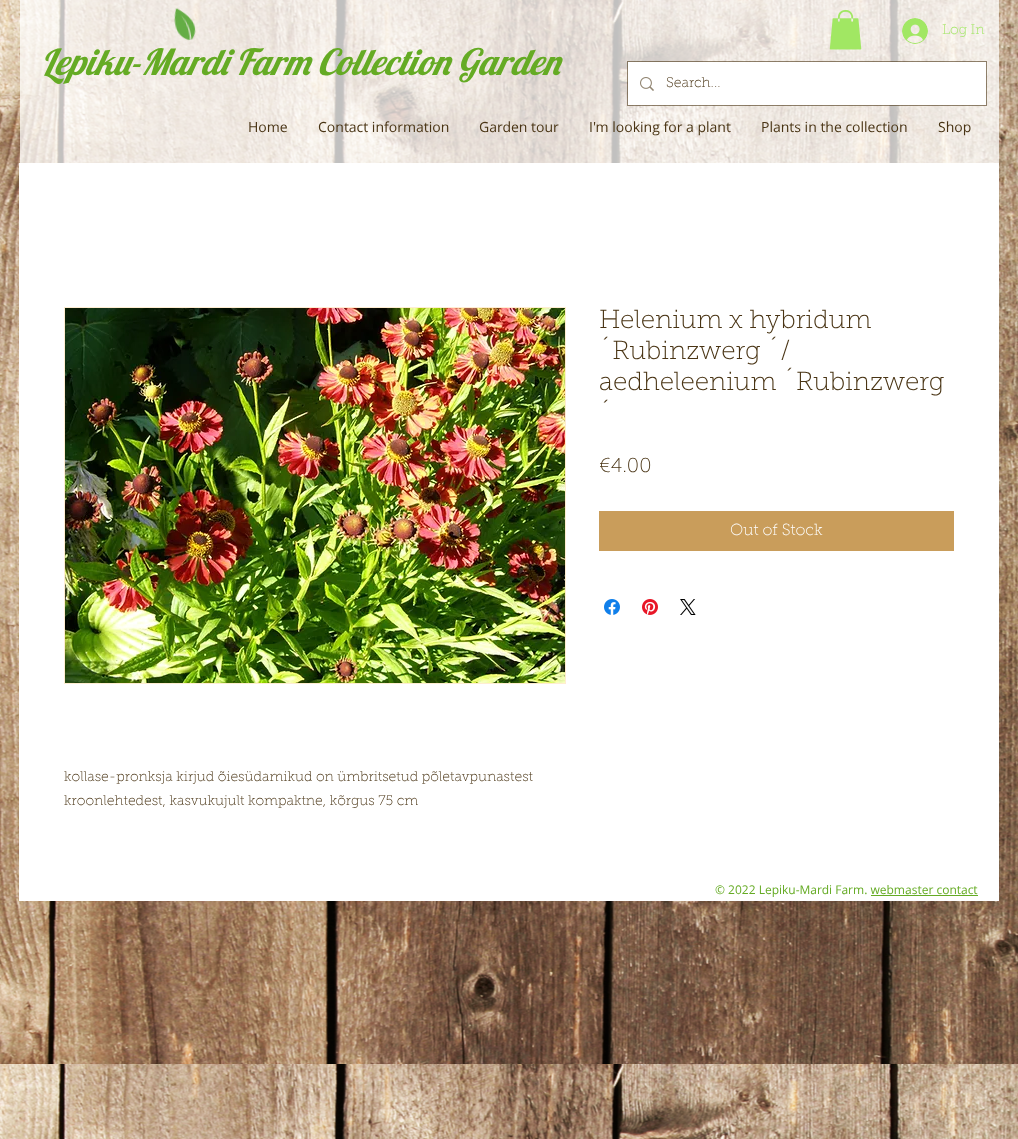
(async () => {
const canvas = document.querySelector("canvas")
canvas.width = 1018
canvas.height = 1139
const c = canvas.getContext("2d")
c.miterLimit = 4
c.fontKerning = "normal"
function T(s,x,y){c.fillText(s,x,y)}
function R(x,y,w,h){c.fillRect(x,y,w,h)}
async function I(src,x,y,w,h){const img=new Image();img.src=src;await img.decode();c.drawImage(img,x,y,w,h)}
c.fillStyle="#fff"
R(0,0,1018,1139)
await I("1.png",0,0,1018,1139)
c.fillStyle="#ffffffbf"
R(20,0,979,163)
await I("2.png",174,7,22,34)
await I("3.png",829,10,33,40)
await I("4.png",902,18,26,26)
c.font="100 14px 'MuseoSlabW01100'"
c.fillStyle="#a1e763"
T("Log In",942,34)
c.font="italic 36px Lobster"
c.fillStyle="#65ab24"
T("Lepiku-Mardi Farm Collection Garden",41,75)
c.strokeStyle="#49341499"
c.strokeRect(627.5,61.5,359,44)
c.fillStyle="#fff"
R(628,62,358,43)
await I("5.png",640,77,14,14)
c.font="100 14px 'MuseoSlabW01100'"
c.fillStyle="#493414"
T("Search...",666,87)
c.font="14px Open Sans"
T("Home",248,132)
T("Contact information",318,132)
T("Garden tour",479,132)
T("I'm looking for a plant",589,132)
T("Plants in the collection",761,132)
T("Shop",938,132)
c.fillStyle="#fff"
R(19,163,980,738)
c.font="100 26px 'MuseoSlabW01100'"
c.fillStyle="#493414"
T("Helenium x hybridum",599,328)
T("´Rubinzwerg ´/",599,359)
T("aedheleenium ´Rubinzwerg",599,390)
T("´",599,422)
c.font="100 20px 'MuseoSlabW01100'"
T("€4.00",599,472)
c.fillStyle="#c99d5b"
R(599,511,355,40)
c.font="100 16px 'MuseoSlabW01100'"
c.fillStyle="#fff"
T("Out of Stock",730,535)
await I("6.png",604,599,16,16)
await I("7.png",642,599,16,16)
await I("8.png",680,599,16,16)
c.strokeStyle="#ffedd1"
c.strokeRect(64.5,307.5,501,376)
await I("9.png",65,308,500,375)
c.font="100 14px 'MuseoSlabW01100'"
c.fillStyle="#493414"
T("kollase-pronksja kirjud õiesüdamikud on ümbritsetud põletavpunastest",64,781)
T("kroonlehtedest, kasvukujult kompaktne, kõrgus 75 cm",64,805)
c.font="12px Open Sans"
c.fillStyle="#65ab24"
T("© 2022 Lepiku-Mardi Farm. webmaster contact",715,894)
R(871,895,107,1)
})()
